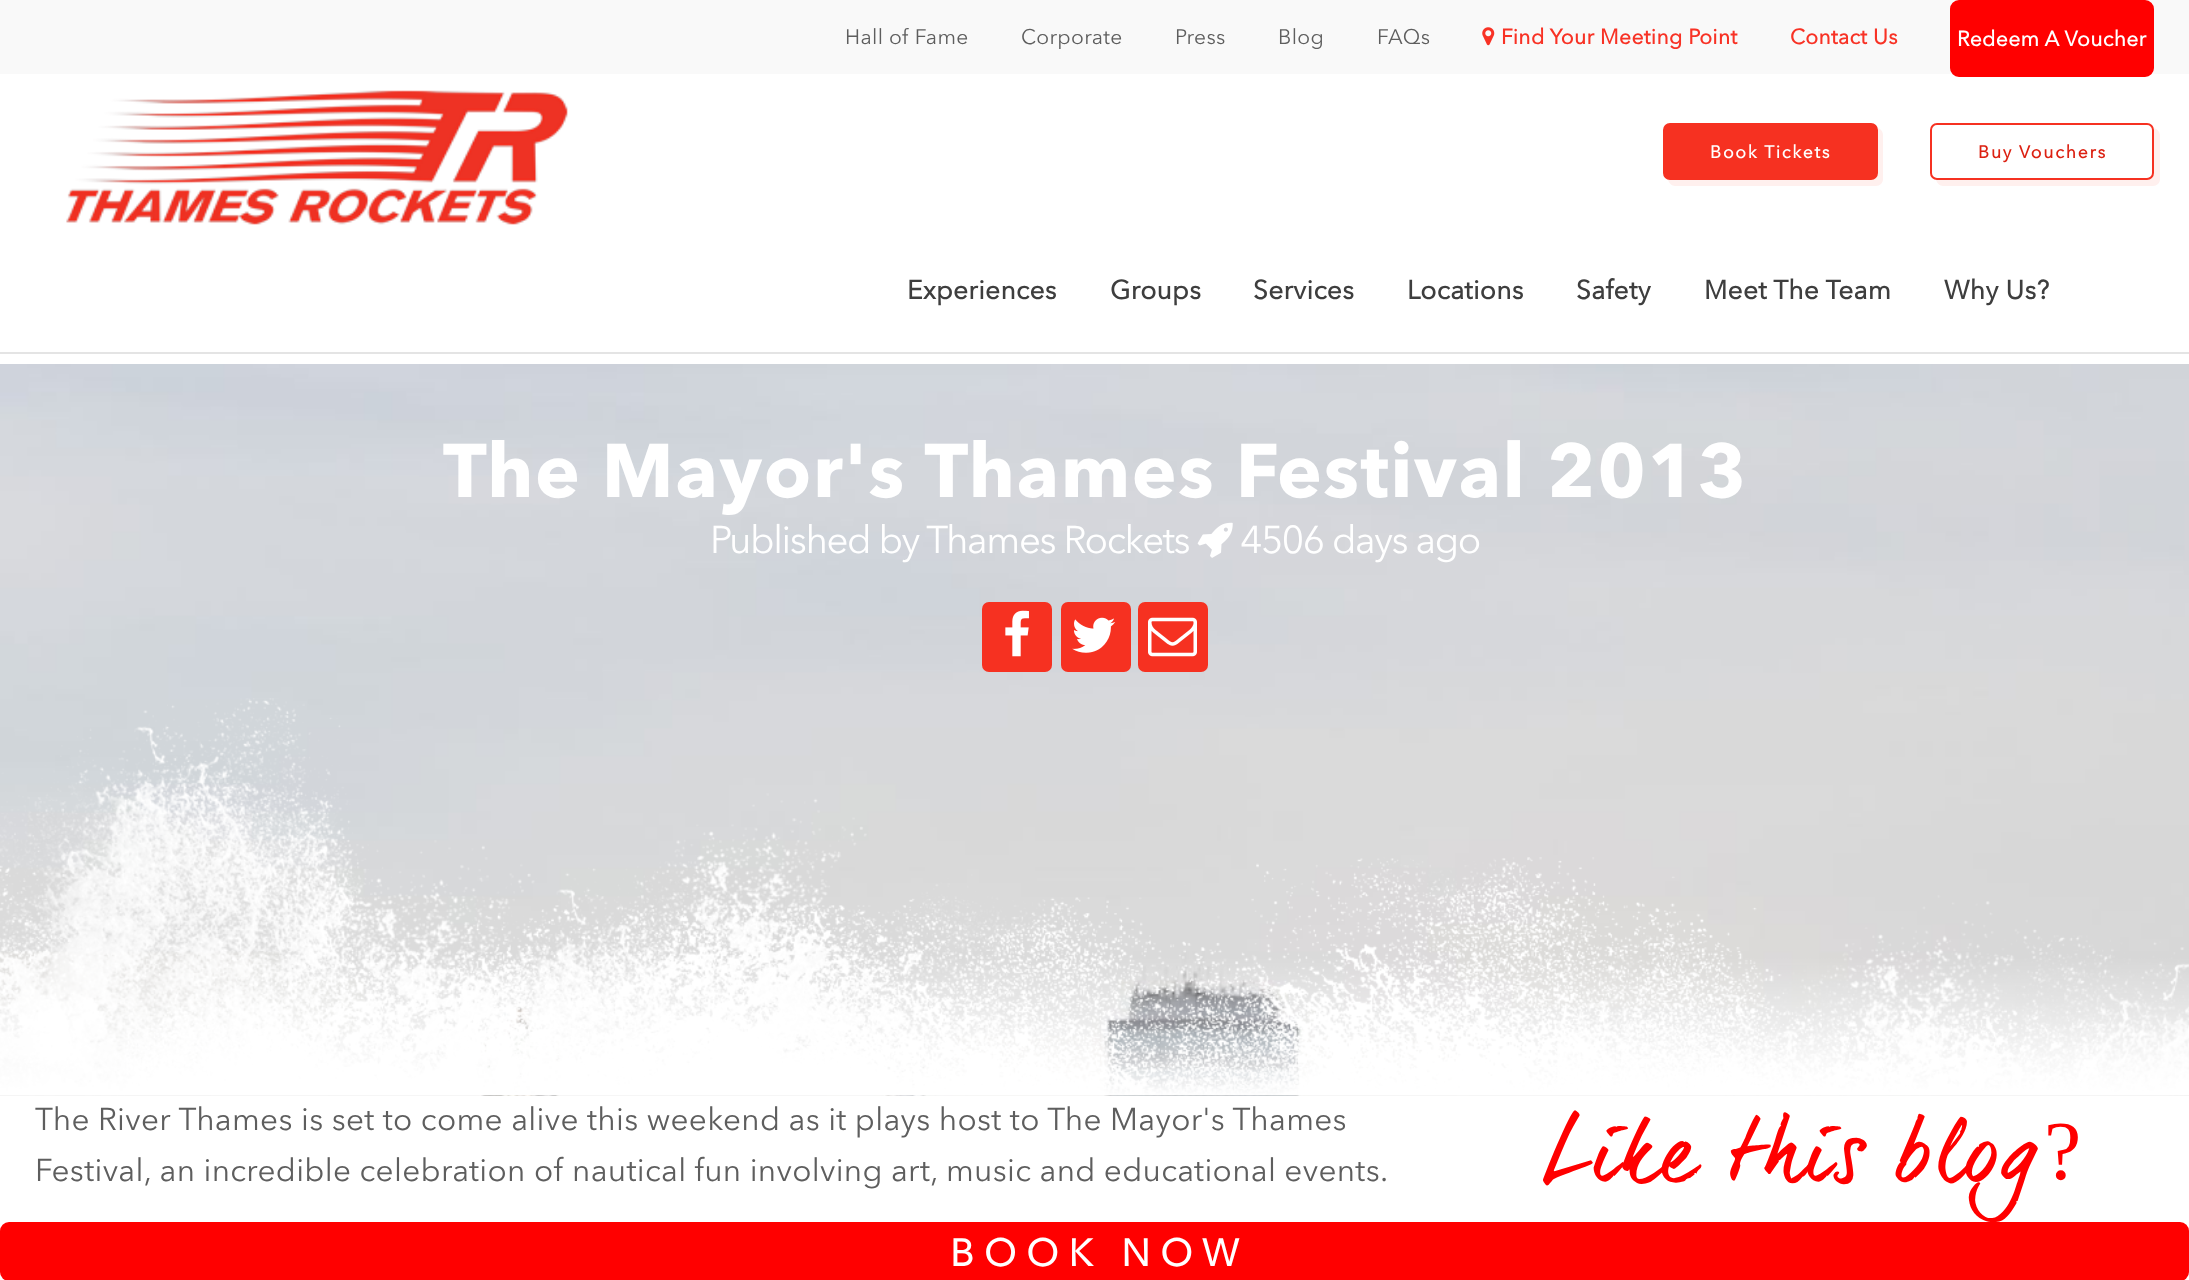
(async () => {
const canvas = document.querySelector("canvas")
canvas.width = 2189
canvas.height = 1280
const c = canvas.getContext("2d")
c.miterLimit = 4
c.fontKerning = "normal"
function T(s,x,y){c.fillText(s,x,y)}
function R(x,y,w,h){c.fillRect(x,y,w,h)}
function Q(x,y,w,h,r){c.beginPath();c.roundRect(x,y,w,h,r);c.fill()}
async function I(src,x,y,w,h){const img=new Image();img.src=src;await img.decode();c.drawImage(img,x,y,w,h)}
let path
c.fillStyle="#fff"
R(0,0,2189,1280)
c.fillStyle="#f9f9f9"
R(0,0,2189,74)
c.letterSpacing="0.35px"
c.font="21px 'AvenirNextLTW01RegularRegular'"
c.fillStyle="#5e5e5e"
T("Hall of Fame",845,44)
T("Corporate",1021,44)
T("Press",1175,44)
T("Blog",1278,44)
T("FAQs",1377,44)
await I("1.png",1482,27,13,19)
c.font="bold 21px 'AvenirNextLTW01RegularRegular'"
c.fillStyle="#f83225"
T("Find Your Meeting Point",1501,44)
T("Contact Us",1790,44)
c.fillStyle="#f00"
c.beginPath()
c.roundRect(1951,1,202,75,8)
c.fill()
c.strokeStyle="#f00"
c.lineWidth=2
c.stroke()
c.fillStyle="#fff"
T("Redeem A Voucher",1957,46)
c.fillStyle="#e4e4e4"
R(0,352,2189,2)
await I("2.png",66,90,502,135)
c.fillStyle="#fff0ee"
path = new Path2D("M1668 180c1 3 4 6 7 6h201c4 0 7-3 7-7v-44c0-3-2-6-5-7v38c0 5 1 14-7 14z")
c.fill(path)
c.fillStyle="#f63121"
c.beginPath()
c.roundRect(1664,124,213,55,6)
c.fill()
c.strokeStyle="#f63121"
c.stroke()
c.letterSpacing="1.75px"
c.font="bold 17.5px 'AvenirNextLTW01RegularRegular'"
c.fillStyle="#fff"
T("Book Tickets",1710,158)
c.fillStyle="#fff0ee"
path = new Path2D("M1936 180c1 3 4 6 7 6h210c4 0 7-3 7-7v-44c0-3-3-6-6-7v38c0 5 1 14-7 14z")
c.fill(path)
c.fillStyle="#fff"
c.beginPath()
c.roundRect(1931,124,222,55,6)
c.fill()
c.stroke()
c.fillStyle="#dc2112"
T("Buy Vouchers",1978,158)
c.letterSpacing="0.35px"
c.font="bold 26.25px 'AvenirNextLTW01RegularRegular'"
c.fillStyle="#3e3e3e"
T("Experiences",907,299)
T("Groups",1110,299)
T("Services",1253,299)
T("Locations",1407,299)
T("Safety",1576,299)
T("Meet The Team",1704,299)
T("Why Us?",1944,299)
await I("3.png",0,364,2189,732)
c.letterSpacing="1.6px"
c.font="bold 75.25px 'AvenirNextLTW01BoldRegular'"
c.fillStyle="#fff"
T("The Mayor's Thames Festival 2013",443,497)
c.letterSpacing="-1.4px"
c.font="38.5px 'AvenirNextLTW01RegularRegular'"
T("Published by Thames Rockets",710,553)
await I("4.png",1197,522,36,36)
T("4506 days ago",1240,553)
c.fillStyle="#f63121"
Q(982,602,70,70,7)
await I("5.png",1005,610,24,47)
Q(1061,602,70,70,7)
await I("6.png",1072,617,44,36)
Q(1138,602,70,70,7)
await I("7.png",1148,617,49,40)
await I("8.png",0,698,2189,398)
c.letterSpacing="0.32px"
c.font="31.5px 'AvenirNextLTW01RegularRegular'"
c.fillStyle="#5e5e5e"
T("The River Thames is set to come alive this weekend as it plays host to The Mayor's Thames",35,1130)
T("Festival, an incredible celebration of nautical fun involving art, music and educational events.",35,1181)
c.letterSpacing="0px"
c.font="84px 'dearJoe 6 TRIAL'"
c.fillStyle="#f00"
T("Like this blog",1544,1179)
c.font="84px Liberation Serif"
T("?",2044,1179)
Q(0,1222,2189,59,9)
c.letterSpacing="0.32px"
c.font="bold 37.75px 'AvenirNextLTW01RegularRegular'"
c.fillStyle="#fff"
T("B O O K   N O W",950,1266)
})()
